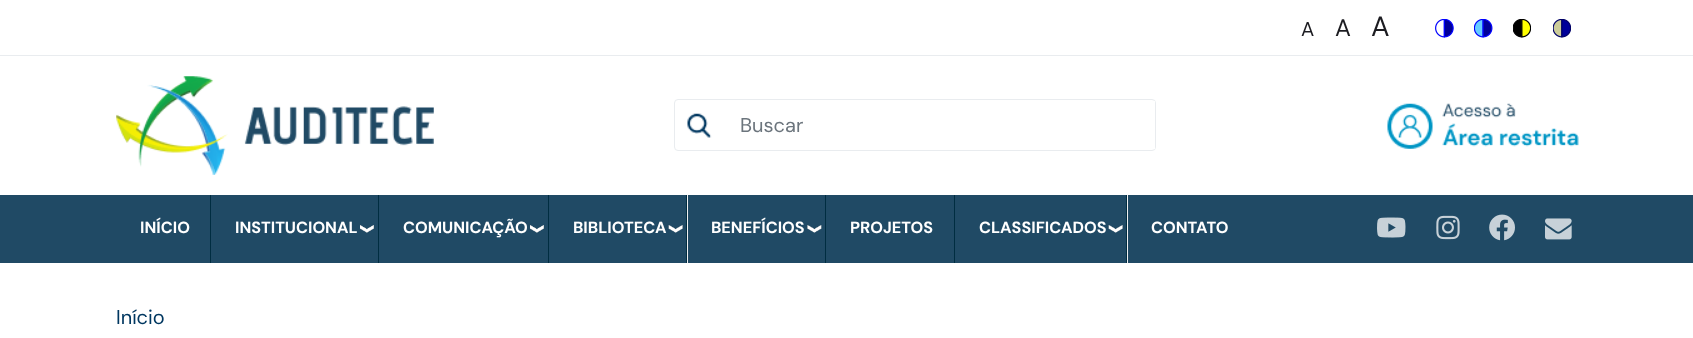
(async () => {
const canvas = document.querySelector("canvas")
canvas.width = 1693
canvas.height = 338
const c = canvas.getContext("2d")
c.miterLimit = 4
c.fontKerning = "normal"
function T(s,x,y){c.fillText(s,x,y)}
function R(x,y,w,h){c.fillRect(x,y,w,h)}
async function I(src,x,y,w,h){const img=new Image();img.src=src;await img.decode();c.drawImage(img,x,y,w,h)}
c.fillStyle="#fff"
R(0,0,1693,338)
c.fillStyle="#e9ecef"
R(0,55,1693,1)
c.font="20px DM Sans"
c.fillStyle="#1c1c21"
T("A",1301,36)
c.font="24px DM Sans"
T("A",1335,36)
c.font="28px DM Sans"
T("A",1371,36)
await I("1.png",1435,19,19,19)
await I("2.png",1474,19,19,19)
await I("3.png",1513,19,18,19)
await I("4.png",1553,19,18,19)
await I("5.png",116,76,318,99)
c.beginPath()
c.roundRect(674.5,99.5,481,51,3.5)
c.strokeStyle="#e9ecef"
c.stroke()
await I("6.png",687,113,25,25)
c.fillStyle="#fff"
R(1154,101,1,48)
c.font="20px DM Sans"
c.fillStyle="#6c757d"
T("Buscar",740,132)
await I("7.png",1387,103,192,46)
c.fillStyle="#204a65"
R(0,195,1693,68)
c.fillStyle="#eff0f1"
R(687,195,441,68)
c.font="bold 16.25px DM Sans"
c.fillStyle="#fff"
T("INÍCIO",140,233)
c.fillStyle="#002d41"
R(210,195,1,68)
c.fillStyle="#fff"
T("INSTITUCIONAL",235,233)
await I("8.png",360,225,14,8)
await I("9.png",360,225,14,8)
c.fillStyle="#002d41"
R(378,195,1,68)
c.fillStyle="#fff"
T("COMUNICAÇÃO",403,233)
await I("10.png",530,225,14,8)
await I("11.png",530,225,14,8)
c.fillStyle="#002d41"
R(548,195,1,68)
c.fillStyle="#fff"
T("BIBLIOTECA",573,233)
await I("12.png",668,225,15,8)
await I("13.png",668,225,15,8)
c.fillStyle="#002d41"
R(686,195,1,68)
c.fillStyle="#204a65"
R(688,195,137,68)
c.fillStyle="#fff"
T("BENEFÍCIOS",711,233)
await I("14.png",807,225,15,8)
await I("15.png",807,225,15,8)
c.fillStyle="#002d41"
R(825,195,1,68)
c.fillStyle="#204a65"
R(826,195,128,68)
c.fillStyle="#fff"
T("PROJETOS",850,233)
c.fillStyle="#002d41"
R(954,195,1,68)
c.fillStyle="#204a65"
R(955,195,171,68)
c.fillStyle="#fff"
T("CLASSIFICADOS",979,233)
await I("12.png",1108,225,15,8)
await I("13.png",1108,225,15,8)
c.fillStyle="#002d41"
R(1126,195,1,68)
c.fillStyle="#fff"
T("CONTATO",1151,233)
await I("16.png",1377,217,29,21)
await I("17.png",1436,215,24,25)
await I("18.png",1489,214,26,27)
await I("19.png",1545,218,27,22)
c.font="20px DM Sans"
c.fillStyle="#003760"
T("Início",116,324)
})()
